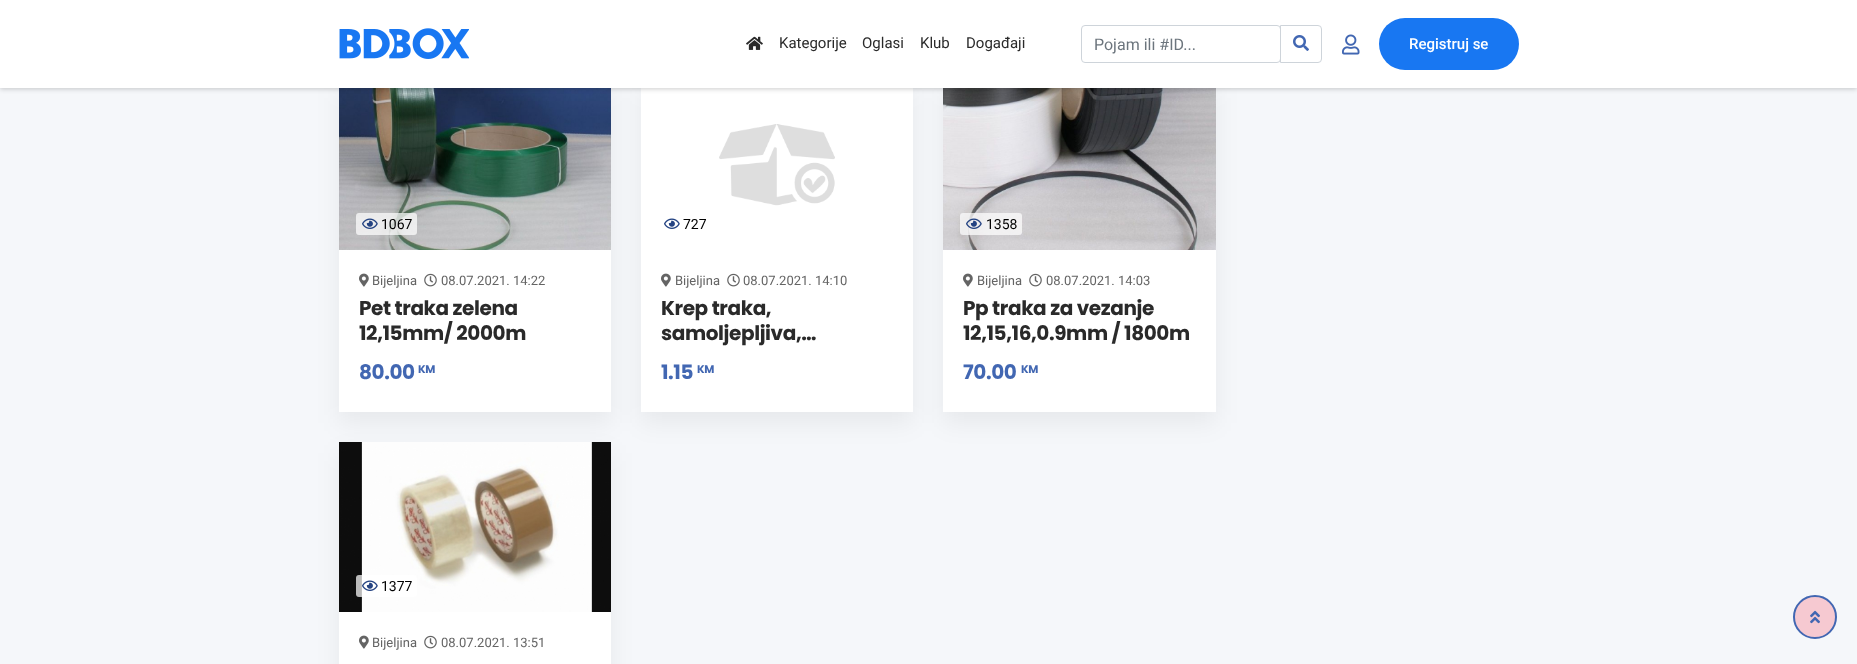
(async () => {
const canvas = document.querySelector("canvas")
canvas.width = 1857
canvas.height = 664
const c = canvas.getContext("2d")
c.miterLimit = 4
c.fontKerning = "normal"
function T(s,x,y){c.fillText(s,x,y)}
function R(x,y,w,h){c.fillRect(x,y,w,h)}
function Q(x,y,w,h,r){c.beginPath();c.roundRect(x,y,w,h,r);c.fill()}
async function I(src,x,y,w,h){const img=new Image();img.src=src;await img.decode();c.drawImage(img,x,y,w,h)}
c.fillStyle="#f5f7fa"
R(0,0,1857,664)
c.fillStyle="#0000000f"
c.filter="blur(12.5px)"
c.beginPath()
c.rect(339,90,272,333)
c.fill()
c.filter="none"
await I("5.png",339,88,272,162)
c.fillStyle="#fff"
R(339,250,272,162)
c.fillStyle="#0000000f"
c.filter="blur(12.5px)"
c.beginPath()
c.rect(641,90,272,333)
c.fill()
c.filter="none"
c.fillStyle="#fff"
R(641,88,272,324)
c.fillStyle="#0000000f"
c.filter="blur(12.5px)"
c.beginPath()
c.rect(943,90,273,333)
c.fill()
c.filter="none"
await I("11.png",943,88,273,162)
c.fillStyle="#00000033"
c.filter="blur(2.5px)"
c.beginPath()
c.rect(0,1,1857,88)
c.fill()
c.filter="none"
c.fillStyle="#fff"
R(0,0,1857,88)
await I("1.png",339,28,130,31)
await I("2.png",746,36,17,14)
c.font="15px Roboto"
c.fillStyle="#2a2a2a"
T("Kategorije",779,48)
T("Oglasi",862,48)
T("Klub",920,48)
T("Događaji",966,48)
c.beginPath()
c.roundRect(1081.5,25.5,199,37,3.5)
c.strokeStyle="#ced4da"
c.stroke()
c.font="16px Roboto"
c.fillStyle="#6c757d"
T("Pojam ili #ID...",1094,50)
c.beginPath()
c.roundRect(1280.5,25.5,41,37,[0,3.5,3.5,0])
c.stroke()
await I("3.png",1293,35,16,16)
await I("4.png",1342,34,18,21)
c.fillStyle="#1877f2"
Q(1379,18,140,52,26)
c.font="500 15px Roboto"
c.fillStyle="#fff"
T("Registruj se",1409,49)
c.fillStyle="#ffffffb8"
Q(356,213,61,22,3)
await I("6.png",362,218,16,11)
c.font="14px Roboto"
c.fillStyle="#000"
T("1067",381,229)
await I("7.png",359,273,10,14)
c.font="13px Roboto"
c.fillStyle="#646464"
T("Bijeljina",372,285)
await I("8.png",424,273,13,14)
T("08.07.2021. 14:22",441,285)
c.letterSpacing="-0.4px"
c.font="bold 20px Poppins"
c.fillStyle="#2a2a2a"
T("Pet traka zelena",359,315)
T("12,15mm/ 2000m",359,340)
c.fillStyle="#4267b2"
T("80.00",359,379)
c.font="bold 11px Poppins"
T("KM",418,373)
await I("9.png",719,124,116,82)
await I("10.png",664,218,16,11)
c.letterSpacing="0px"
c.font="14px Roboto"
c.fillStyle="#000"
T("727",683,229)
await I("7.png",661,273,10,14)
c.font="13px Roboto"
c.fillStyle="#646464"
T("Bijeljina",675,285)
await I("8.png",727,273,13,14)
T("08.07.2021. 14:10",743,285)
c.letterSpacing="-0.4px"
c.font="bold 20px Poppins"
c.fillStyle="#2a2a2a"
T("Krep traka,",661,315)
T("samoljepljiva,…",661,340)
c.fillStyle="#4267b2"
T("1.15",661,379)
c.font="bold 11px Poppins"
T("KM",697,373)
c.fillStyle="#fff"
R(943,250,273,162)
c.fillStyle="#ffffffb8"
Q(960,213,62,22,3)
await I("12.png",966,218,16,11)
c.letterSpacing="0px"
c.font="14px Roboto"
c.fillStyle="#000"
T("1358",986,229)
await I("7.png",963,273,10,14)
c.font="13px Roboto"
c.fillStyle="#646464"
T("Bijeljina",977,285)
await I("8.png",1029,273,13,14)
T("08.07.2021. 14:03",1046,285)
c.letterSpacing="-0.4px"
c.font="bold 20px Poppins"
c.fillStyle="#2a2a2a"
T("Pp traka za vezanje",963,315)
T("12,15,16,0.9mm / 1800m",963,340)
c.fillStyle="#4267b2"
T("70.00",963,379)
c.font="bold 11px Poppins"
T("KM",1021,373)
c.fillStyle="#0000000f"
c.filter="blur(12.5px)"
c.beginPath()
c.rect(339,453,272,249)
c.fill()
c.filter="none"
c.fillStyle="#fff"
R(339,612,272,52)
await I("13.png",339,442,272,170)
c.fillStyle="#ffffffb8"
Q(356,575,61,22,3)
await I("14.png",362,580,16,11)
c.letterSpacing="0px"
c.font="14px Roboto"
c.fillStyle="#000"
T("1377",381,591)
await I("7.png",359,635,10,14)
c.font="13px Roboto"
c.fillStyle="#646464"
T("Bijeljina",372,647)
await I("8.png",424,635,13,14)
T("08.07.2021. 13:51",441,647)
c.fillStyle="#f6c9d1"
c.beginPath()
c.arc(1815,617,21,0,7)
c.fill()
c.strokeStyle="#4267b2"
c.lineWidth=2
c.stroke()
await I("15.png",1810,610,10,14)
})()
